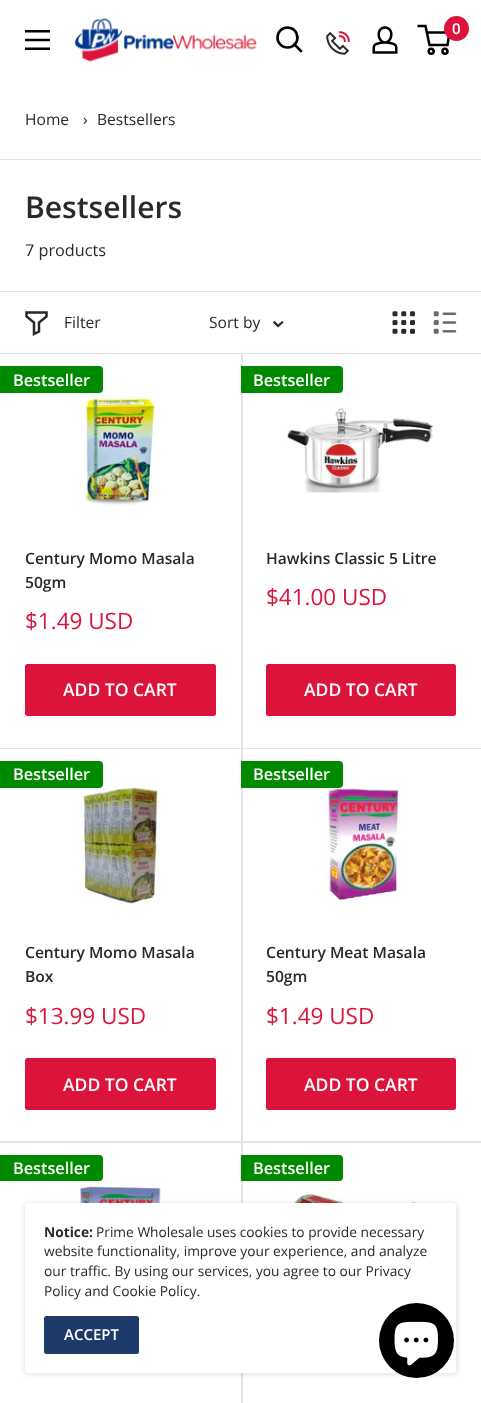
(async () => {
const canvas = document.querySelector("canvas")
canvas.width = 481
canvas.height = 1403
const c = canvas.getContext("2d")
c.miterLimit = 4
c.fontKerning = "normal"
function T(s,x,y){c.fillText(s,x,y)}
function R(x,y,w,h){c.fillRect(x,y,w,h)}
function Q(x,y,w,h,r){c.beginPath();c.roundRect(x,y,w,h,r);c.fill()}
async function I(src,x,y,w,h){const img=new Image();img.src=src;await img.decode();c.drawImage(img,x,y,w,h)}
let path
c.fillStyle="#fff"
R(0,0,481,1403)
await I("1.png",25,30,25,20)
await I("2.png",75,18,182,44)
path = new Path2D("M301 51l-6.5-6.5")
c.strokeStyle="#000"
c.lineWidth=2.6
c.lineCap="square"
c.stroke(path)
c.beginPath()
c.arc(287.5,37.5,10,0,7)
c.stroke()
await I("3.png",326,31,24,24)
await I("4.png",372,26,26,28)
c.beginPath()
c.arc(431.2,51.2,2.5,0,7)
c.lineWidth=2.5
c.stroke()
c.beginPath()
c.arc(445,51.2,2.5,0,7)
c.stroke()
path = new Path2D("M426.5 32.5h23l-2 12.5h-18l-4-19h-8")
c.lineCap="butt"
c.stroke(path)
c.fillStyle="#dc143c"
c.beginPath()
c.arc(456.5,28.5,12.5,0,7)
c.fill()
c.font="600 15px Open Sans"
c.fillStyle="#fff"
T("0",452,34)
c.font="15.6px Open Sans"
c.fillStyle="#28292a"
T("Home",25,125)
T("›",83,125)
T("Bestsellers",97,125)
c.fillStyle="#e1e3e4"
R(0,159,481,1)
c.font="600 30px Open Sans"
c.fillStyle="#28292a"
T("Bestsellers",25,218)
c.font="16.25px Open Sans"
T("7 products",25,256)
c.fillStyle="#e1e3e4"
R(0,291,481,1)
path = new Path2D("M1 748h242v-395h-2v395z")
c.fill(path)
R(0,353,481,1)
path = new Path2D("M46.5 316.5l-7.5 6v9l-5 2.5v-11.5l-7.5-6v-4h20z")
c.strokeStyle="#28292a"
c.lineCap="square"
c.stroke(path)
c.font="15.6px Open Sans"
c.fillStyle="#28292a"
T("Filter",64,328)
T("Sort by",209,328)
path = new Path2D("M282 322.5l-4 3.5l-3.5-3.5")
c.lineWidth=2.3
c.stroke(path)
await I("5.png",392,311,23,23)
await I("6.png",433,311,24,23)
c.fillStyle="#e1e3e4"
R(0,748,241,1)
c.fillStyle="#008a00"
c.beginPath()
c.roundRect(0,366,103,27,[0,4,4,0])
c.fill()
c.font="600 16.25px Open Sans"
c.fillStyle="#fff"
T("Bestseller",13,386)
await I("7.png",84,394,72,112)
c.font="600 15.6px Open Sans"
c.fillStyle="#28292a"
T("Century Momo Masala",25,564)
T("50gm",25,588)
c.font="22.5px Open Sans"
c.fillStyle="#dc143c"
T("$1.49 USD",25,629)
Q(25,664,191,52,2.5)
c.font="600 17.5px Open Sans"
c.fillStyle="#fff"
T("ADD TO CART",63,696)
c.fillStyle="#008a00"
c.beginPath()
c.roundRect(241,366,102,27,[0,4,4,0])
c.fill()
c.font="600 16.25px Open Sans"
c.fillStyle="#fff"
T("Bestseller",253,386)
await I("8.png",287,408,147,85)
c.font="600 15.6px Open Sans"
c.fillStyle="#28292a"
T("Hawkins Classic 5 Litre",266,564)
c.font="22.5px Open Sans"
c.fillStyle="#dc143c"
T("$41.00 USD",266,605)
Q(266,664,190,52,2.5)
c.font="600 17.5px Open Sans"
c.fillStyle="#fff"
T("ADD TO CART",304,696)
c.fillStyle="#e1e3e4"
path = new Path2D("M241 354v395h240v-1h-240z")
c.fill(path)
R(0,1141,241,2)
R(241,748,2,393)
await I("9.png",80,787,80,117)
c.fillStyle="#008a00"
c.beginPath()
c.roundRect(0,761,103,27,[0,4,4,0])
c.fill()
c.font="600 16.25px Open Sans"
c.fillStyle="#fff"
T("Bestseller",13,780)
c.font="600 15.6px Open Sans"
c.fillStyle="#28292a"
T("Century Momo Masala",25,958)
T("Box",25,982)
c.font="22.5px Open Sans"
c.fillStyle="#dc143c"
T("$13.99 USD",25,1024)
Q(25,1058,191,52,2.5)
c.font="600 17.5px Open Sans"
c.fillStyle="#fff"
T("ADD TO CART",63,1091)
await I("10.png",326,787,77,116)
c.fillStyle="#008a00"
c.beginPath()
c.roundRect(241,761,102,27,[0,4,4,0])
c.fill()
c.font="600 16.25px Open Sans"
c.fillStyle="#fff"
T("Bestseller",253,780)
c.font="600 15.6px Open Sans"
c.fillStyle="#28292a"
T("Century Meat Masala",266,958)
T("50gm",266,982)
c.font="22.5px Open Sans"
c.fillStyle="#dc143c"
T("$1.49 USD",266,1024)
Q(266,1058,190,52,2.5)
c.font="600 17.5px Open Sans"
c.fillStyle="#fff"
T("ADD TO CART",304,1091)
c.fillStyle="#e1e3e4"
path = new Path2D("M241 749v394h240v-2h-240z")
c.fill(path)
c.fillStyle="#008a00"
c.beginPath()
c.roundRect(0,1155,103,26,[0,4,4,0])
c.fill()
c.font="600 16.25px Open Sans"
c.fillStyle="#fff"
T("Bestseller",13,1174)
c.fillStyle="#e1e3e4"
path = new Path2D("M1 1141h240v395h2v-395z")
c.fill(path)
await I("11.png",78,1183,83,20)
c.fillStyle="#008a00"
c.beginPath()
c.roundRect(241,1155,102,26,[0,4,4,0])
c.fill()
c.fillStyle="#fff"
T("Bestseller",253,1174)
await I("12.png",286,1194,150,9)
c.fillStyle="#0000001a"
c.filter="blur(2.5px)"
c.beginPath()
c.roundRect(24,1203,434,172,5)
c.fill()
c.filter="none"
c.fillStyle="#fff"
Q(25,1203,431,170,4)
c.font="bold 13.75px Open Sans"
c.fillStyle="#28292a"
T("Notice:",44,1237)
c.font="13.75px Open Sans"
T("Prime Wholesale uses cookies to provide necessary",96,1237)
T("website functionality, improve your experience, and analyze",44,1256)
T("our traffic. By using our services, you agree to our Privacy",44,1276)
T("Policy and Cookie Policy.",44,1296)
c.fillStyle="#1e3a68"
Q(44,1316,95,38,2.5)
c.font="600 15px Open Sans"
c.fillStyle="#fff"
T("ACCEPT",64,1340)
c.fillStyle="#000"
c.beginPath()
c.arc(416.5,1340.5,37.5,0,7)
c.fill()
await I("13.png",394,1321,44,45)
})()
